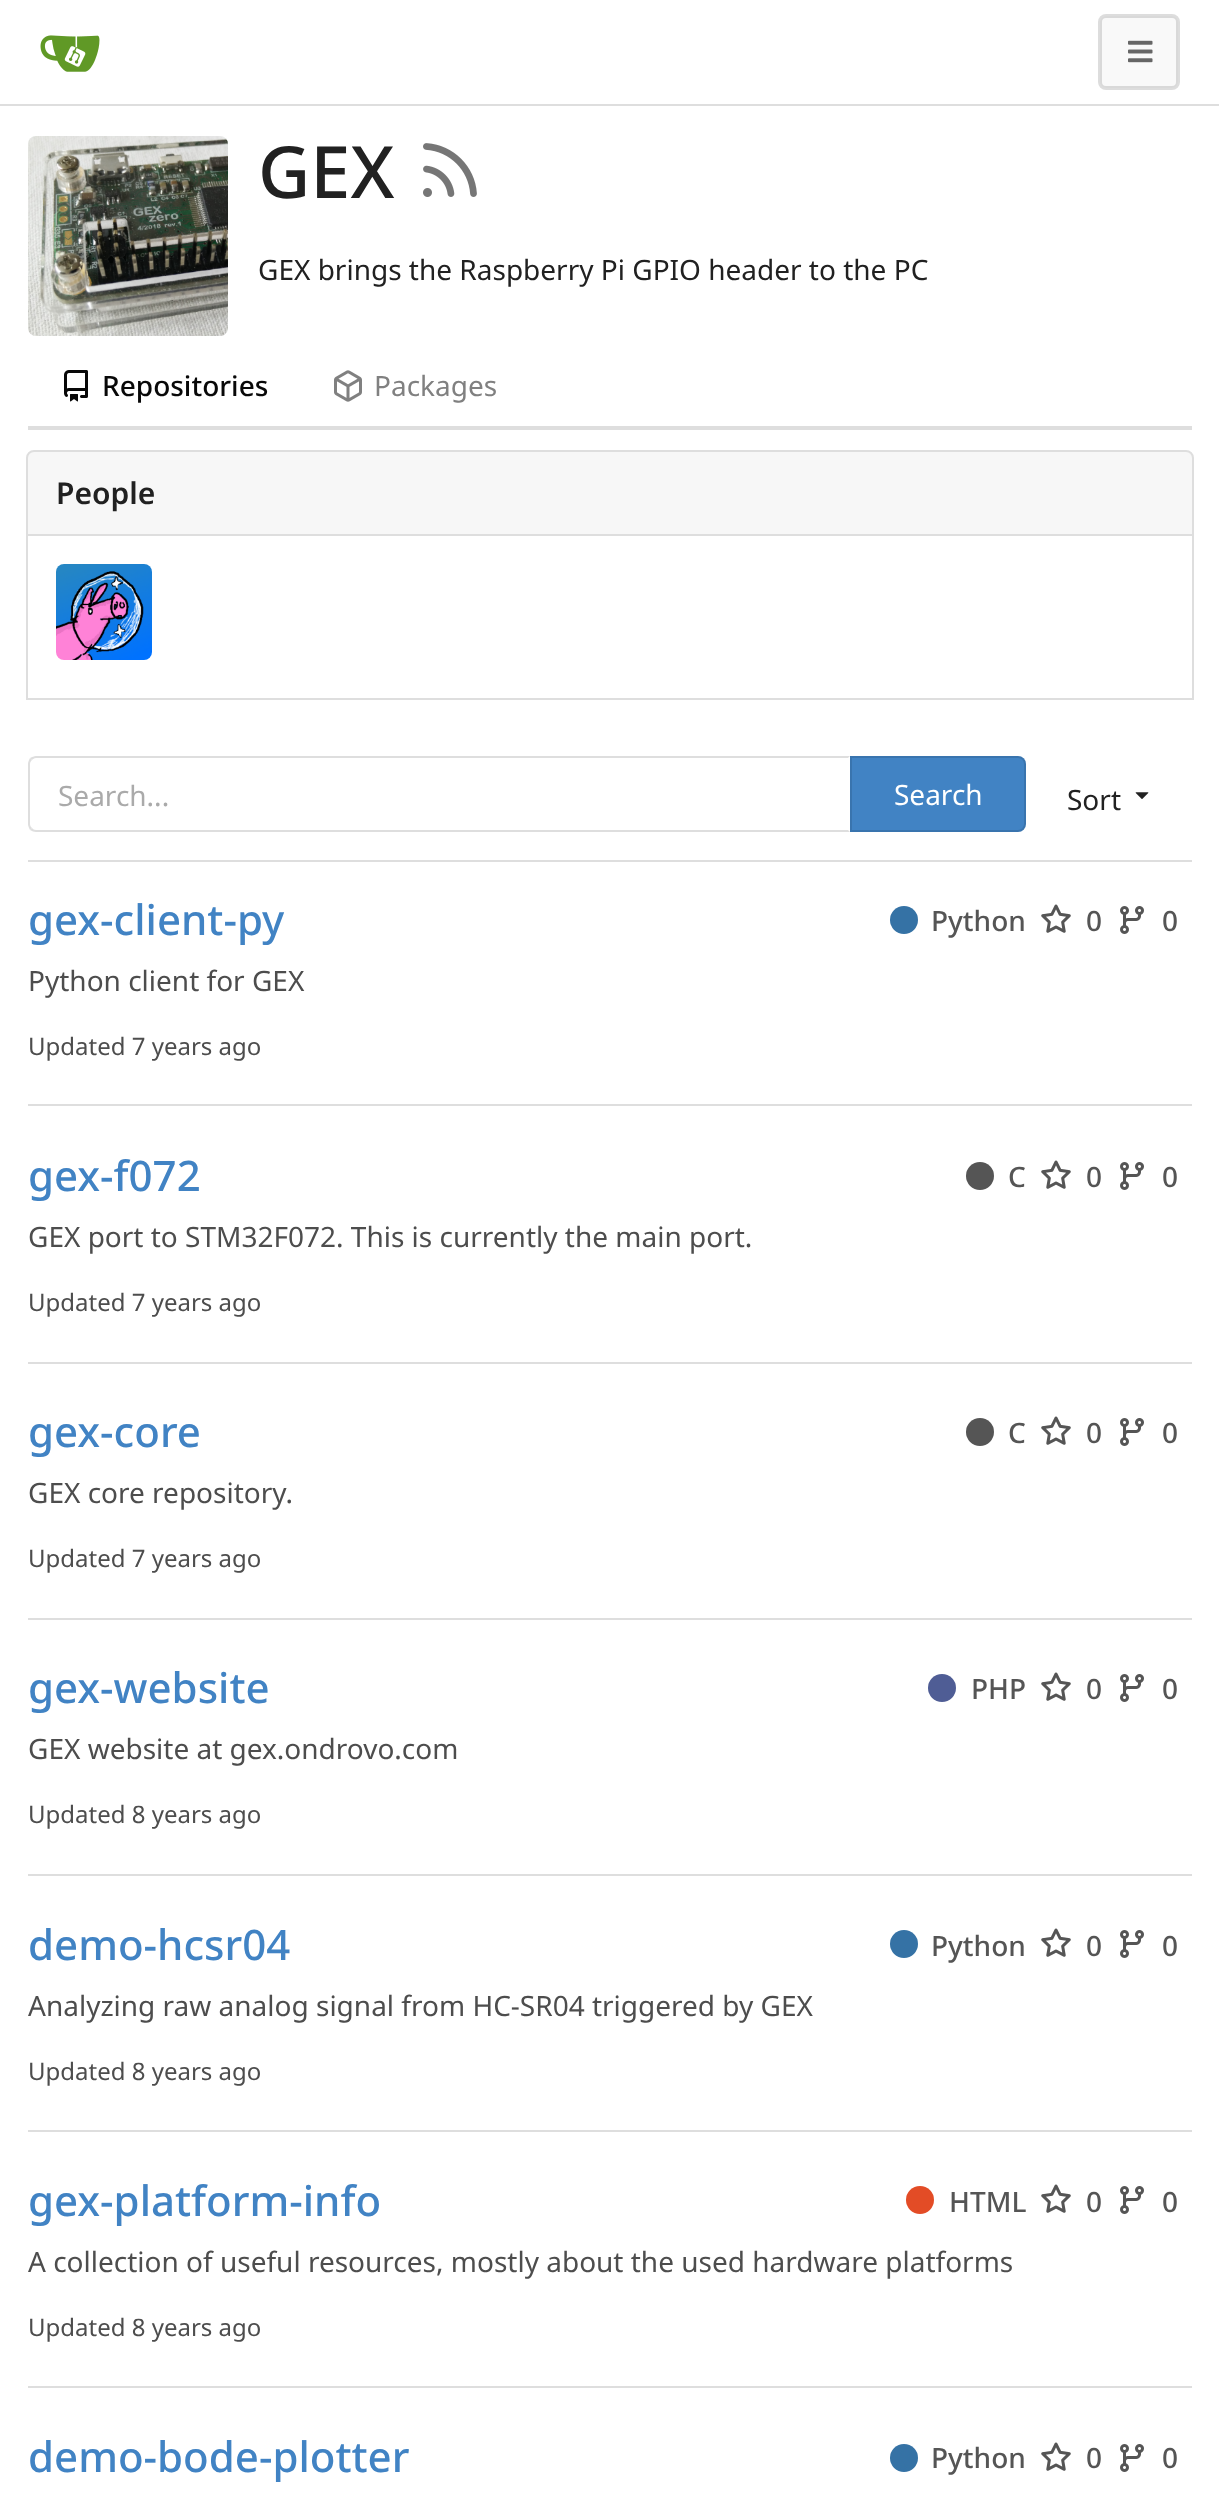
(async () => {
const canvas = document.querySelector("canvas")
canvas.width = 1219
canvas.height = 2515
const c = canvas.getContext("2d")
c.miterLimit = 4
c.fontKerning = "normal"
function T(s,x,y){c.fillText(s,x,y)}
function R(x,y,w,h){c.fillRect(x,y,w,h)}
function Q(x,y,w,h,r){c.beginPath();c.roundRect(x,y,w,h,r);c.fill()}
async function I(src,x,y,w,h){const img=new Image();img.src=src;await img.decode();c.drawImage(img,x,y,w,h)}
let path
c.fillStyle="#fff"
R(0,0,1219,2515)
c.fillStyle="#dedede"
R(0,104,1219,2)
await I("1.png",40,35,60,37)
c.fillStyle="#f9f9f9"
Q(1098,14,82,76,8)
c.beginPath()
c.roundRect(1101,17,76,70,5)
c.strokeStyle="#d9d9d9"
c.lineWidth=2
c.stroke()
c.beginPath()
c.roundRect(1099,15,80,74,7)
c.strokeStyle="#0000001c"
c.stroke()
await I("2.png",1128,40,25,23)
await I("3.png",28,136,200,200)
c.font="500 72px Noto Sans"
c.fillStyle="#212121"
T("GEX",258,198)
await I("4.png",423,143,54,54)
c.font="28px Noto Sans"
T("GEX brings the Raspberry Pi GPIO header to the PC",258,280)
c.fillStyle="#dedede"
R(28,426,1164,4)
await I("5.png",64,370,24,32)
c.font="500 28px Noto Sans"
c.fillStyle="#080808"
T("Repositories",102,396)
await I("6.png",334,370,28,32)
c.font="28px Noto Sans"
c.fillStyle="#808080"
T("Packages",374,396)
c.fillStyle="#f7f7f7"
c.beginPath()
c.roundRect(27,451,1166,84,[7,7,0,0])
c.fill()
c.strokeStyle="#dedede"
c.stroke()
c.font="600 30px Noto Sans"
c.fillStyle="#212121"
T("People",56,504)
c.fillStyle="#dedede"
R(1192,536,2,164)
R(26,698,1168,2)
R(26,536,2,164)
await I("7.png",56,564,96,96)
path = new Path2D("M36 756c-2 0-4 1-6 2l2 2c1-1 2-2 4-2h812l2-2z")
c.fill(path)
path = new Path2D("M850 832l-2-2h-812c-2 0-3-1-4-2l-2 2c2 1 4 2 6 2z")
c.fill(path)
path = new Path2D("M28 764v60c0 2 1 4 2 6l2-2c-1-1-2-2-2-4v-60c0-2 1-3 2-4l-2-2c-1 2-2 4-2 6z")
c.fill(path)
c.font="28px Noto Sans"
c.fillStyle="#aaa"
T("Search...",58,806)
c.fillStyle="#4183c4"
c.beginPath()
c.roundRect(850,756,176,76,[0,8,8,0])
c.fill()
c.beginPath()
c.roundRect(851,757,174,74,[0,7,7,0])
c.strokeStyle="#0000001c"
c.stroke()
c.fillStyle="#fff"
T("Search",894,805)
c.fillStyle="#212121"
T("Sort",1067,810)
await I("8.png",1135,792,14,7)
c.fillStyle="#dedede"
R(28,860,1164,2)
c.font="500 42px Noto Sans"
c.fillStyle="#4183c4"
T("gex-client-py",28,935)
c.fillStyle="#3572a5"
c.beginPath()
c.arc(904,920,14,0,7)
c.fill()
c.font="500 28px Noto Sans"
c.fillStyle="#555"
T("Python",931,931)
await I("9.png",1041,904,30,29)
T("0",1086,931)
await I("10.png",1120,906,24,28)
T("0",1162,931)
c.font="28px Noto Sans"
c.fillStyle="#4d4d4d"
T("Python client for GEX",28,991)
c.font="24px Noto Sans"
T("Updated 7 years ago",28,1055)
c.fillStyle="#dedede"
R(28,1104,1164,2)
c.font="500 42px Noto Sans"
c.fillStyle="#4183c4"
T("gex-f072",28,1191)
c.fillStyle="#555"
c.beginPath()
c.arc(980,1176,14,0,7)
c.fill()
c.font="500 28px Noto Sans"
T("C",1008,1187)
await I("9.png",1041,1160,30,29)
T("0",1086,1187)
await I("10.png",1120,1162,24,28)
T("0",1162,1187)
c.font="28px Noto Sans"
c.fillStyle="#4d4d4d"
T("GEX port to STM32F072. This is currently the main port.",28,1247)
c.font="24px Noto Sans"
T("Updated 7 years ago",28,1311)
c.fillStyle="#dedede"
R(28,1362,1164,2)
c.font="500 42px Noto Sans"
c.fillStyle="#4183c4"
T("gex-core",28,1447)
c.fillStyle="#555"
c.beginPath()
c.arc(980,1432,14,0,7)
c.fill()
c.font="500 28px Noto Sans"
T("C",1008,1443)
await I("9.png",1041,1416,30,29)
T("0",1086,1443)
await I("10.png",1120,1418,24,28)
T("0",1162,1443)
c.font="28px Noto Sans"
c.fillStyle="#4d4d4d"
T("GEX core repository.",28,1503)
c.font="24px Noto Sans"
T("Updated 7 years ago",28,1567)
c.fillStyle="#dedede"
R(28,1618,1164,2)
c.font="500 42px Noto Sans"
c.fillStyle="#4183c4"
T("gex-website",28,1703)
c.fillStyle="#4f5d95"
c.beginPath()
c.arc(942,1688,14,0,7)
c.fill()
c.font="500 28px Noto Sans"
c.fillStyle="#555"
T("PHP",971,1699)
await I("9.png",1041,1672,30,29)
T("0",1086,1699)
await I("10.png",1120,1674,24,28)
T("0",1162,1699)
c.font="28px Noto Sans"
c.fillStyle="#4d4d4d"
T("GEX website at gex.ondrovo.com",28,1759)
c.font="24px Noto Sans"
T("Updated 8 years ago",28,1823)
c.fillStyle="#dedede"
R(28,1874,1164,2)
c.font="500 42px Noto Sans"
c.fillStyle="#4183c4"
T("demo-hcsr04",28,1960)
c.fillStyle="#3572a5"
c.beginPath()
c.arc(904,1944,14,0,7)
c.fill()
c.font="500 28px Noto Sans"
c.fillStyle="#555"
T("Python",931,1956)
await I("9.png",1041,1928,30,29)
T("0",1086,1956)
await I("10.png",1120,1930,24,28)
T("0",1162,1956)
c.font="28px Noto Sans"
c.fillStyle="#4d4d4d"
T("Analyzing raw analog signal from HC-SR04 triggered by GEX",28,2016)
c.font="24px Noto Sans"
T("Updated 8 years ago",28,2080)
c.fillStyle="#dedede"
R(28,2130,1164,2)
c.font="500 42px Noto Sans"
c.fillStyle="#4183c4"
T("gex-platform-info",28,2216)
c.fillStyle="#e34c26"
c.beginPath()
c.arc(920,2200,14,0,7)
c.fill()
c.font="500 28px Noto Sans"
c.fillStyle="#555"
T("HTML",949,2212)
await I("9.png",1041,2184,30,29)
T("0",1086,2212)
await I("10.png",1120,2186,24,28)
T("0",1162,2212)
c.font="28px Noto Sans"
c.fillStyle="#4d4d4d"
T("A collection of useful resources, mostly about the used hardware platforms",28,2272)
c.font="24px Noto Sans"
T("Updated 8 years ago",28,2336)
c.fillStyle="#dedede"
R(28,2386,1164,2)
c.font="500 42px Noto Sans"
c.fillStyle="#4183c4"
T("demo-bode-plotter",28,2472)
c.fillStyle="#3572a5"
c.beginPath()
c.arc(904,2458,14,0,7)
c.fill()
c.font="500 28px Noto Sans"
c.fillStyle="#555"
T("Python",931,2468)
await I("9.png",1041,2442,30,29)
T("0",1086,2468)
await I("10.png",1120,2444,24,28)
T("0",1162,2468)
})()
